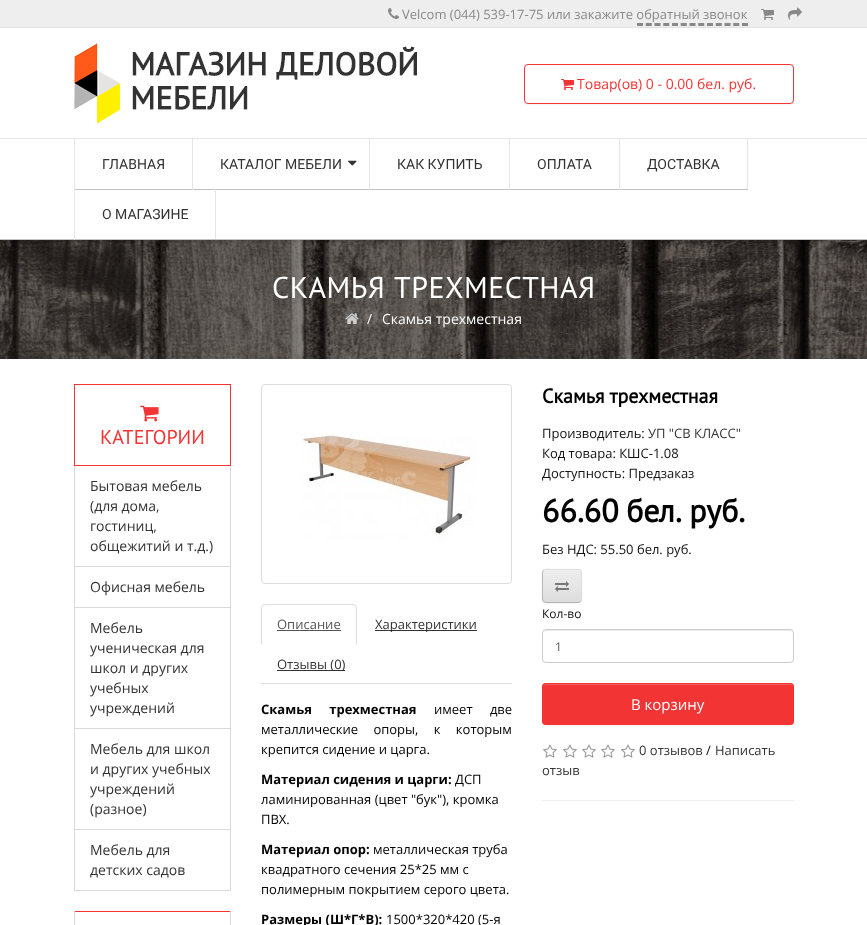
(async () => {
const canvas = document.querySelector("canvas")
canvas.width = 867
canvas.height = 925
const c = canvas.getContext("2d")
c.miterLimit = 4
c.fontKerning = "normal"
function T(s,x,y){c.fillText(s,x,y)}
function R(x,y,w,h){c.fillRect(x,y,w,h)}
function Q(x,y,w,h,r){c.beginPath();c.roundRect(x,y,w,h,r);c.fill()}
async function I(src,x,y,w,h){const img=new Image();img.src=src;await img.decode();c.drawImage(img,x,y,w,h)}
let gradient, path
c.fillStyle="#fff"
R(0,0,867,925)
c.fillStyle="#eee"
R(0,0,867,27)
c.fillStyle="#e2e2e2"
R(0,27,867,1)
await I("1.png",388,8,11,11)
c.font="13px Open Sans"
c.fillStyle="#888"
T("Velcom (044) 539-17-75 или закажите обратный звонок",402,19)
path = new Path2D("M637 24.5h111")
c.strokeStyle="#888"
c.lineWidth=3
c.setLineDash([6,2.75])
c.stroke(path)
await I("2.png",761,9,13,11)
await I("3.png",788,7,14,13)
await I("4.png",74,43,343,80)
c.fillStyle="#0000000d"
c.filter="blur(1px)"
c.beginPath()
c.roundRect(524,65,270,40,4)
c.fill()
c.filter="none"
c.fillStyle="#fff"
c.beginPath()
c.roundRect(524.5,64.5,269,39,3.5)
c.fill()
c.strokeStyle="#f23534"
c.lineWidth=1
c.setLineDash([])
c.stroke()
await I("5.png",561,79,13,11)
c.font="14px Open Sans"
c.fillStyle="#f23534"
T("Товар(ов) 0 - 0.00 бел. руб.",577,89)
c.fillStyle="#e5e5e5"
R(0,138,867,1)
c.fillStyle="#c1c1c1"
R(74,189,546,1)
R(0,239,867,1)
c.fillStyle="#e5e5e5"
R(74,139,1,101)
c.font="14px Roboto"
c.fillStyle="#333"
T("ГЛАВНАЯ",102,169)
c.fillStyle="#e5e5e5"
R(192,139,1,51)
c.fillStyle="#333"
T("КАТАЛОГ МЕБЕЛИ",220,169)
await I("6.png",348,160,9,6)
c.fillStyle="#e5e5e5"
R(369,139,1,51)
c.fillStyle="#333"
T("КАК КУПИТЬ",397,169)
c.fillStyle="#e5e5e5"
R(509,139,1,51)
c.fillStyle="#333"
T("ОПЛАТА",537,169)
c.fillStyle="#e5e5e5"
R(747,139,1,51)
c.fillStyle="#c1c1c1"
R(619,189,129,1)
c.fillStyle="#e5e5e5"
R(619,139,1,51)
c.fillStyle="#333"
T("ДОСТАВКА",647,169)
c.fillStyle="#e5e5e5"
R(215,189,1,51)
c.fillStyle="#c1c1c1"
R(215,239,1,1)
c.fillStyle="#333"
T("О МАГАЗИНЕ",102,219)
await I("8.png",0,240,867,119)
await I("7.png",0,240,867,3)
c.letterSpacing="0.5px"
c.wordSpacing="1px"
c.font="30px PT Sans"
c.fillStyle="#fff"
T("СКАМЬЯ ТРЕХМЕСТНАЯ",272,298)
await I("9.png",345,313,14,11)
c.letterSpacing="0px"
c.wordSpacing="0px"
c.font="14px Open Sans"
T("/",367,324)
T("Скамья трехместная",382,324)
c.strokeRect(74.5,384.5,156,81)
await I("10.png",140,405,19,17)
c.font="20px PT Sans"
c.fillStyle="#f23534"
T("КАТЕГОРИИ",100,444)
c.fillStyle="#d9d9d9"
R(230,466,1,425)
R(74,566,157,1)
R(74,466,1,101)
c.font="14px Open Sans"
c.fillStyle="#333"
T("Бытовая мебель",90,491)
T("(для дома,",90,511)
T("гостиниц,",90,531)
T("общежитий и т.д.)",90,551)
c.fillStyle="#d9d9d9"
R(74,607,157,1)
R(74,567,1,41)
c.fillStyle="#333"
T("Офисная мебель",90,592)
c.fillStyle="#d9d9d9"
R(74,728,157,1)
R(74,608,1,121)
c.fillStyle="#333"
T("Мебель",90,633)
T("ученическая для",90,653)
T("школ и других",90,673)
T("учебных",90,693)
T("учреждений",90,713)
c.fillStyle="#d9d9d9"
R(74,829,157,1)
R(74,729,1,101)
c.fillStyle="#333"
T("Мебель для школ",90,754)
T("и других учебных",90,774)
T("учреждений",90,794)
T("(разное)",90,814)
c.fillStyle="#d9d9d9"
R(74,890,157,1)
R(74,830,1,61)
c.fillStyle="#333"
T("Мебель для",90,855)
T("детских садов",90,875)
c.strokeStyle="#d9d9d9"
c.strokeRect(74.5,911.5,156,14)
c.fillStyle="#f23534"
R(75,911,155,1)
c.beginPath()
c.roundRect(261.5,384.5,250,199,3.5)
c.strokeStyle="#ddd"
c.stroke()
await I("11.png",300,432,176,109)
c.fillStyle="#ddd"
R(261,683,251,1)
path = new Path2D("M265 604l-3 1l1 1l2-1h88l2 1l1-1l-3-1z")
c.fill(path)
path = new Path2D("M357 645v-37c0-1-.5-2-1-3l-1 1c1 0 1 1 1 2v36z")
c.fill(path)
path = new Path2D("M261 645l1-1v-36c0-1 0-2 1-2l-1-1c-.5 1-1 2-1 3z")
c.fill(path)
c.font="13px Open Sans"
c.fillStyle="#555"
T("Описание",277,629)
R(277,630,64,1)
c.fillStyle="#333"
R(375,630,102,1)
T("Характеристики",375,629)
R(277,670,68,1)
T("Отзывы (0)",277,669)
c.wordSpacing="14px"
c.font="bold 13px Open Sans"
c.fillStyle="#000"
T("Скамья трехместная",261,714)
c.font="13px Open Sans"
T("имеет две",434,714)
c.wordSpacing="12px"
T("металлические опоры, к которым",261,734)
c.wordSpacing="0px"
T("крепится сидение и царга.",261,754)
c.font="bold 13px Open Sans"
T("Материал сидения и царги:",261,784)
c.font="13px Open Sans"
T("ДСП",455,784)
T("ламинированная (цвет \"бук\"), кромка",261,804)
T("ПВХ.",261,824)
c.font="bold 13px Open Sans"
T("Материал опор:",261,854)
c.font="13px Open Sans"
T("металлическая труба",373,854)
T("квадратного сечения 25*25 мм с",261,874)
T("полимерным покрытием серого цвета.",261,894)
c.font="bold 13px Open Sans"
T("Размеры (Ш*Г*В):",261,924)
c.font="13px Open Sans"
T("1500*320*420 (5-я",386,924)
c.font="bold 20px PT Sans"
T("Скамья трехместная",542,403)
c.font="13px Open Sans"
c.fillStyle="#111"
T("Производитель:",542,438)
c.fillStyle="#333"
T("УП \"СВ КЛАСС\"",648,438)
c.fillStyle="#111"
T("Код товара: КШС-1.08",542,458)
T("Доступность: Предзаказ",542,478)
c.wordSpacing="-1px"
c.font="bold 32px PT Sans"
c.fillStyle="#000"
T("66.60 бел. руб.",542,522)
c.wordSpacing="0px"
c.font="13px Open Sans"
c.fillStyle="#111"
T("Без НДС: 55.50 бел. руб.",542,554)
c.fillStyle="#0000000d"
c.filter="blur(1px)"
c.beginPath()
c.roundRect(542,570,40,34,4)
c.fill()
c.filter="none"
c.fillStyle="#e7e7e7"
Q(542,569,40,34,4)
c.save()
c.beginPath()
c.roundRect(542,569,40,34,4)
c.clip()
gradient = c.createLinearGradient(562,570,562,602)
gradient.addColorStop(0,"#eee")
gradient.addColorStop(1,"#ddd")
c.fillStyle = gradient
R(542,570,40,32)
c.restore()
c.fillStyle="#f1f1f1"
path = new Path2D("M546 571h27c5.5 0 7.5 .5 8 2.5c0-5-4.5-3.5-8.5-3.5h-21c-3.5 0-8.5-1-8.5 3.5c.5-1.5 1.5-2.5 3-2.5z")
c.fill(path)
path = new Path2D("M543.5 570.5c2-2 6-1 8-1h21c8.5 0 9-.5 9 8v17c0 2 .5 5.5-1 7")
c.stroke(path)
path = new Path2D("M580.5 601.5c-.5 .5-1.5 1-2.5 1h-32c-1 0-2-.5-2.5-1")
c.strokeStyle="#b3b3b3"
c.stroke(path)
path = new Path2D("M543.5 601.5c-.5-.5-1-1.5-1-2.5v-26c0-1 .5-2 1-2.5")
c.strokeStyle="#b7b7b7"
c.stroke(path)
await I("12.png",555,581,14,11)
c.font="12px Open Sans"
c.fillStyle="#111"
T("Кол-во",542,618)
c.fillStyle="#ececec"
path = new Path2D("M546 631h245l2 1v2c0-2-1-4-3-4h-244c-2 0-3 2-3 4c0-2 1-3 3-3z")
c.fill(path)
c.beginPath()
c.roundRect(542.5,629.5,251,33,3.5)
c.strokeStyle="#ccc"
c.stroke()
c.fillStyle="#555"
T("1",555,651)
c.fillStyle="#0000000d"
c.filter="blur(1px)"
c.beginPath()
c.roundRect(542,684,252,42,4)
c.fill()
c.filter="none"
c.fillStyle="#f23534"
Q(542,683,252,42,4)
c.fillStyle="#f55d5d"
path = new Path2D("M546 685h245l2 1v2c0-2-1-4-3-4h-244c-2 0-3 2-3 4c0-2 1-3 3-3z")
c.fill(path)
c.beginPath()
c.roundRect(542.5,683.5,251,41,3.5)
c.strokeStyle="#f23534"
c.stroke()
c.font="15px Open Sans"
c.fillStyle="#fff"
T("В корзину",631,710)
await I("13.png",543,744,14,14)
await I("13.png",563,744,14,14)
await I("13.png",582,744,14,14)
await I("13.png",601,744,14,14)
await I("13.png",621,744,14,14)
c.font="13px Open Sans"
c.fillStyle="#333"
T("0 отзывов",639,755)
c.fillStyle="#111"
T("/",706,755)
c.fillStyle="#333"
T("Написать",715,755)
T("отзыв",542,775)
c.fillStyle="#eee"
R(542,800,252,1)
})()
